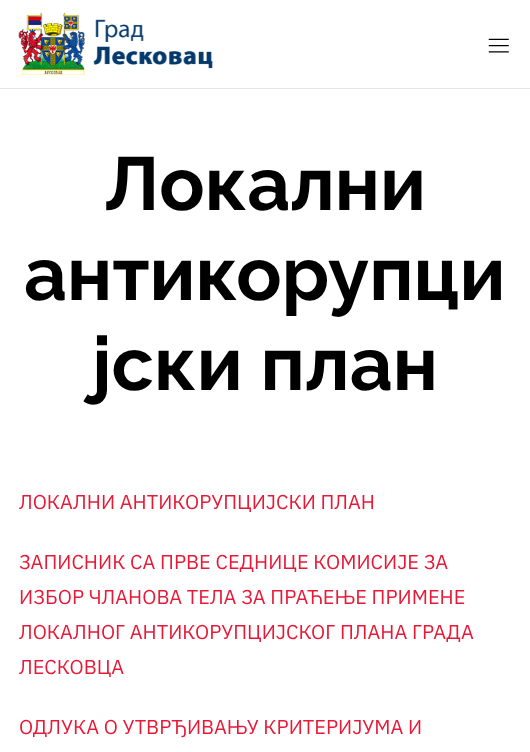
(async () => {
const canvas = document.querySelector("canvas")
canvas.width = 530
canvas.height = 752
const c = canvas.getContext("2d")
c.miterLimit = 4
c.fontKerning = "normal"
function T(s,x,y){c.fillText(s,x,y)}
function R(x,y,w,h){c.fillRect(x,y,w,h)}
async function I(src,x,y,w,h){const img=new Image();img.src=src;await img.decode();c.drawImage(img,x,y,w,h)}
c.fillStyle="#fff"
R(0,0,530,752)
c.fillStyle="#e5e5e5"
R(0,88,530,1)
await I("1.png",18,12,195,63)
await I("2.png",488,38,21,15)
c.font="100 75px Raleway"
c.fillStyle="#000"
T("Локални",104,210)
T("антикорупци",24,300)
T("јски план",92,390)
c.font="20px IBM Plex Sans"
c.fillStyle="#e61937"
T("ЛОКАЛНИ АНТИКОРУПЦИЈСКИ ПЛАН",19,509)
T("ЗАПИСНИК СА ПРВЕ СЕДНИЦЕ КОМИСИЈЕ ЗА",19,569)
T("ИЗБОР ЧЛАНОВА ТЕЛА ЗА ПРАЋЕЊЕ ПРИМЕНЕ",19,604)
T("ЛОКАЛНОГ АНТИКОРУПЦИЈСКОГ ПЛАНА ГРАДА",19,639)
T("ЛЕСКОВЦА",19,674)
T("ОДЛУКА О УТВРЂИВАЊУ КРИТЕРИЈУМА И",19,734)
})()
